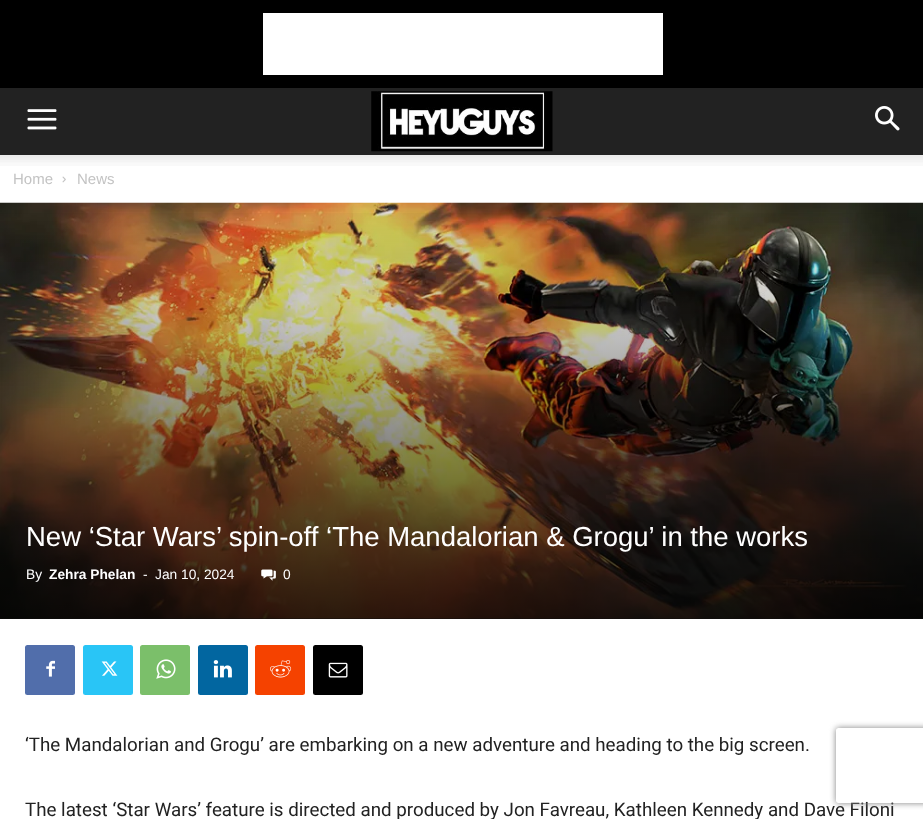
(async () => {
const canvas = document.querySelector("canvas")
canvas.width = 923
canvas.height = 819
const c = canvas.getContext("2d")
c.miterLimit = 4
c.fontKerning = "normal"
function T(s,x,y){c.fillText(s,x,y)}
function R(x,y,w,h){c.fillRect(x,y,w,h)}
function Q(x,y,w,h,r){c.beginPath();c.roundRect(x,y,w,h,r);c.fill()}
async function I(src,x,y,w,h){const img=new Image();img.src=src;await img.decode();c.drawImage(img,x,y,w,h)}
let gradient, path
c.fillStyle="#fff"
R(0,0,923,819)
c.fillStyle="#000"
R(0,0,923,88)
c.fillStyle="#fff"
R(263,13,400,62)
c.fillStyle="#222"
R(0,88,923,67)
await I("1.png",27,109,30,21)
await I("2.png",371,91,182,61)
await I("3.png",875,106,25,25)
await I("4.png",0,155,923,11)
c.font="15px Liberation Sans"
c.fillStyle="#c3c3c3"
T("Home",13,184)
await I("5.png",62,176,4,7)
T("News",77,184)
c.fillStyle="#444"
R(0,618,923,1)
await I("6.png",0,202,923,417)
gradient = c.createLinearGradient(462,202,462,619)
gradient.addColorStop(0,"#00000000")
gradient.addColorStop(1,"#000000cc")
c.fillStyle = gradient
R(0,213,923,406)
c.font="27.5px Liberation Sans"
c.fillStyle="#fff"
T("New ‘Star Wars’ spin-off ‘The Mandalorian & Grogu’ in the works",26,546)
c.font="13.75px Liberation Sans"
T("By",26,579)
c.font="bold 13.75px Liberation Sans"
T("Zehra Phelan",49,579)
c.font="13.75px Liberation Sans"
T("-",143,579)
T("Jan 10, 2024",155,579)
await I("7.png",261,569,15,12)
T("0",283,579)
c.fillStyle="#516eab"
Q(25,645,50,50,2.5)
await I("8.png",46,660,9,17)
c.fillStyle="#29c5f6"
Q(83,645,50,50,2.5)
await I("9.png",101,661,17,15)
c.fillStyle="#7bbf6a"
Q(140,645,50,50,2.5)
await I("10.png",156,659,20,20)
c.fillStyle="#0266a0"
Q(198,645,50,50,2.5)
await I("11.png",213,660,19,18)
c.fillStyle="#f54200"
Q(255,645,50,50,2.5)
await I("12.png",270,660,22,18)
c.fillStyle="#000"
Q(313,645,50,50,2.5)
await I("13.png",328,662,20,16)
c.font="18.75px Roboto"
c.fillStyle="#222"
T("‘The Mandalorian and Grogu’ are embarking on a new adventure and heading to the big screen.",25,751)
T("The latest ‘Star Wars’ feature is directed and produced by Jon Favreau, Kathleen Kennedy and Dave Filoni",25,816)
c.save()
path = new Path2D("M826 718h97v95h-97zm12.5 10h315c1.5 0 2.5 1 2.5 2.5v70c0 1.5-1 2.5-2.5 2.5h-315c-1.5 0-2.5-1-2.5-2.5v-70c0-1.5 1-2.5 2.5-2.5z")
c.clip(path,"evenodd")
c.fillStyle="#808080"
c.filter="blur(3px)"
c.beginPath()
c.roundRect(836,728,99,75,2.5)
c.fill()
c.filter="none"
c.restore()
})()
